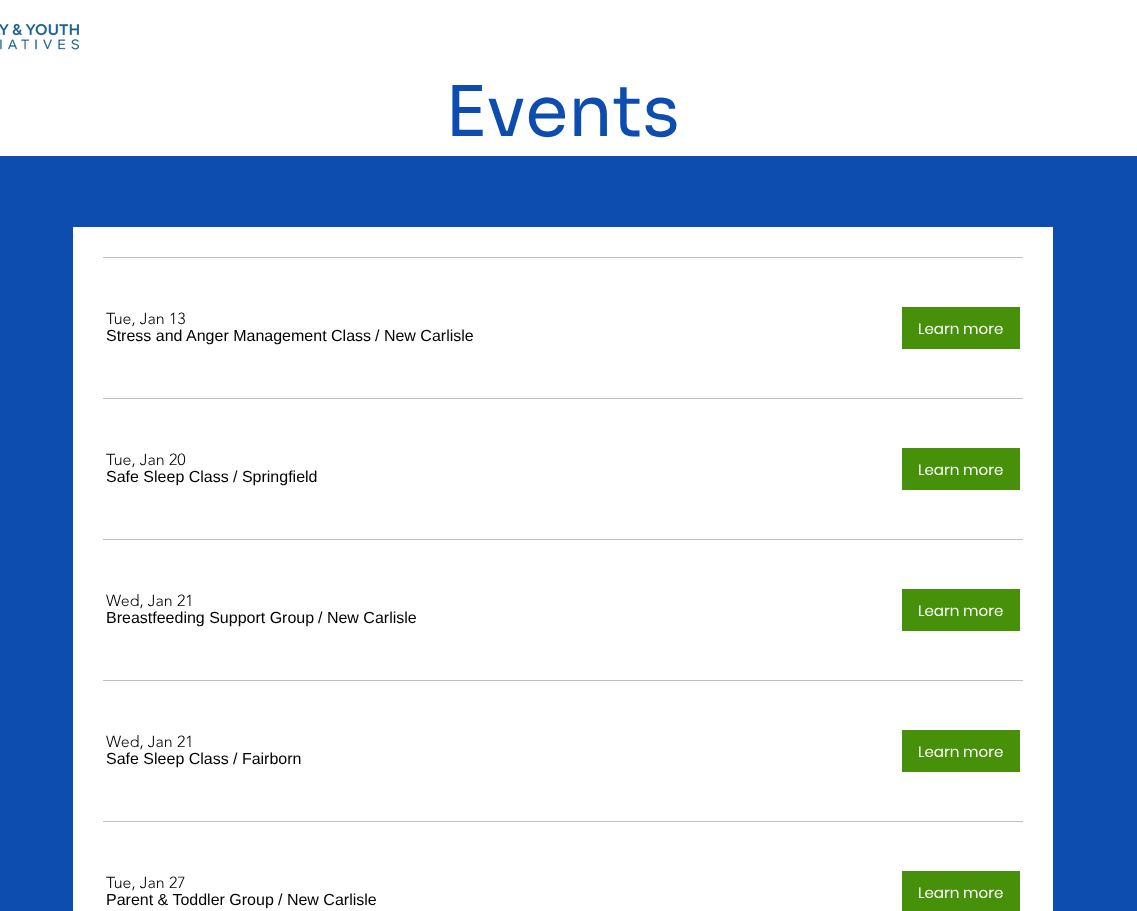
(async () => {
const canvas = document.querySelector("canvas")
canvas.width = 1137
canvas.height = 911
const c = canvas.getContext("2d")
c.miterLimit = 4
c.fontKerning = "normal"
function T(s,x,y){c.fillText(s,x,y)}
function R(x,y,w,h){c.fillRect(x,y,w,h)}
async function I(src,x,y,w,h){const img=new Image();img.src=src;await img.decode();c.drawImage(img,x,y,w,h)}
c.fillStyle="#0e4db0"
R(0,0,1137,911)
c.fillStyle="#fff"
R(0,0,1137,156)
await I("1.png",0,23,79,27)
c.font="70px Sora"
c.fillStyle="#0e4db0"
T("Events",445,136)
c.fillStyle="#fff"
R(73,227,980,684)
c.fillStyle="#bfbfbf"
R(103,257,920,1)
R(103,398,920,1)
c.font="300 16px 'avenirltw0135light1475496'"
c.fillStyle="#000"
T("Tue, Jan 13",106,324)
c.font="16px Liberation Sans"
T("Stress and Anger Management Class",106,341)
T("/ New Carlisle",375,341)
c.fillStyle="#469109"
R(902,307,118,42)
c.font="15px Poppins"
c.fillStyle="#fff"
T("Learn more",918,334)
c.fillStyle="#bfbfbf"
R(103,539,920,1)
c.font="300 16px 'avenirltw0135light1475496'"
c.fillStyle="#000"
T("Tue, Jan 20",106,465)
c.font="16px Liberation Sans"
T("Safe Sleep Class",106,482)
T("/ Springfield",233,482)
c.fillStyle="#469109"
R(902,448,118,42)
c.font="15px Poppins"
c.fillStyle="#fff"
T("Learn more",918,475)
c.fillStyle="#bfbfbf"
R(103,680,920,1)
c.font="300 16px 'avenirltw0135light1475496'"
c.fillStyle="#000"
T("Wed, Jan 21",106,606)
c.font="16px Liberation Sans"
T("Breastfeeding Support Group",106,623)
T("/ New Carlisle",318,623)
c.fillStyle="#469109"
R(902,589,118,42)
c.font="15px Poppins"
c.fillStyle="#fff"
T("Learn more",918,616)
c.fillStyle="#bfbfbf"
R(103,821,920,1)
c.font="300 16px 'avenirltw0135light1475496'"
c.fillStyle="#000"
T("Wed, Jan 21",106,747)
c.font="16px Liberation Sans"
T("Safe Sleep Class",106,764)
T("/ Fairborn",233,764)
c.fillStyle="#469109"
R(902,730,118,42)
c.font="15px Poppins"
c.fillStyle="#fff"
T("Learn more",918,757)
c.font="300 16px 'avenirltw0135light1475496'"
c.fillStyle="#000"
T("Tue, Jan 27",106,888)
c.font="16px Liberation Sans"
T("Parent & Toddler Group",106,905)
T("/ New Carlisle",278,905)
c.fillStyle="#469109"
R(902,871,118,40)
c.font="15px Poppins"
c.fillStyle="#fff"
T("Learn more",918,898)
})()
